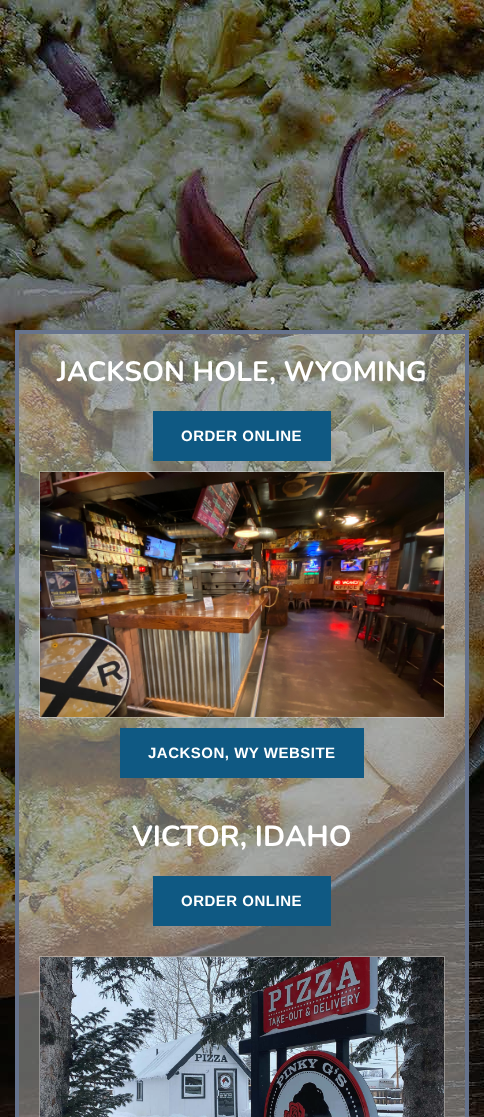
(async () => {
const canvas = document.querySelector("canvas")
canvas.width = 484
canvas.height = 1117
const c = canvas.getContext("2d")
c.miterLimit = 4
c.fontKerning = "normal"
function T(s,x,y){c.fillText(s,x,y)}
function R(x,y,w,h){c.fillRect(x,y,w,h)}
async function I(src,x,y,w,h){const img=new Image();img.src=src;await img.decode();c.drawImage(img,x,y,w,h)}
c.fillStyle="#fff"
R(0,0,484,1117)
await I("1.png",0,0,484,1117)
c.strokeStyle="#66738d"
c.lineWidth=4
c.strokeRect(17,332,450,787)
c.fillStyle="#ffffff5c"
R(19,334,446,783)
c.font="200 28px Nunito"
c.fillStyle="#fff"
T("JACKSON HOLE, WYOMING",57,381)
c.fillStyle="#0f5983"
R(153,411,178,50)
c.letterSpacing="0.5px"
c.font="bold 15px Liberation Sans"
c.fillStyle="#fff"
T("ORDER ONLINE",181,441)
c.strokeStyle="#ffffff4d"
c.lineWidth=1
c.strokeRect(39.5,471.5,405,246)
await I("2.png",40,472,404,245)
c.fillStyle="#0f5983"
R(120,728,244,50)
c.fillStyle="#fff"
T("JACKSON, WY WEBSITE",148,758)
c.letterSpacing="0px"
c.font="200 29px Nunito"
T("VICTOR, IDAHO",132,846)
c.fillStyle="#0f5983"
R(153,876,178,50)
c.letterSpacing="0.5px"
c.font="bold 15px Liberation Sans"
c.fillStyle="#fff"
T("ORDER ONLINE",181,906)
c.strokeRect(39.5,956.5,405,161)
await I("3.png",40,957,404,160)
})()
